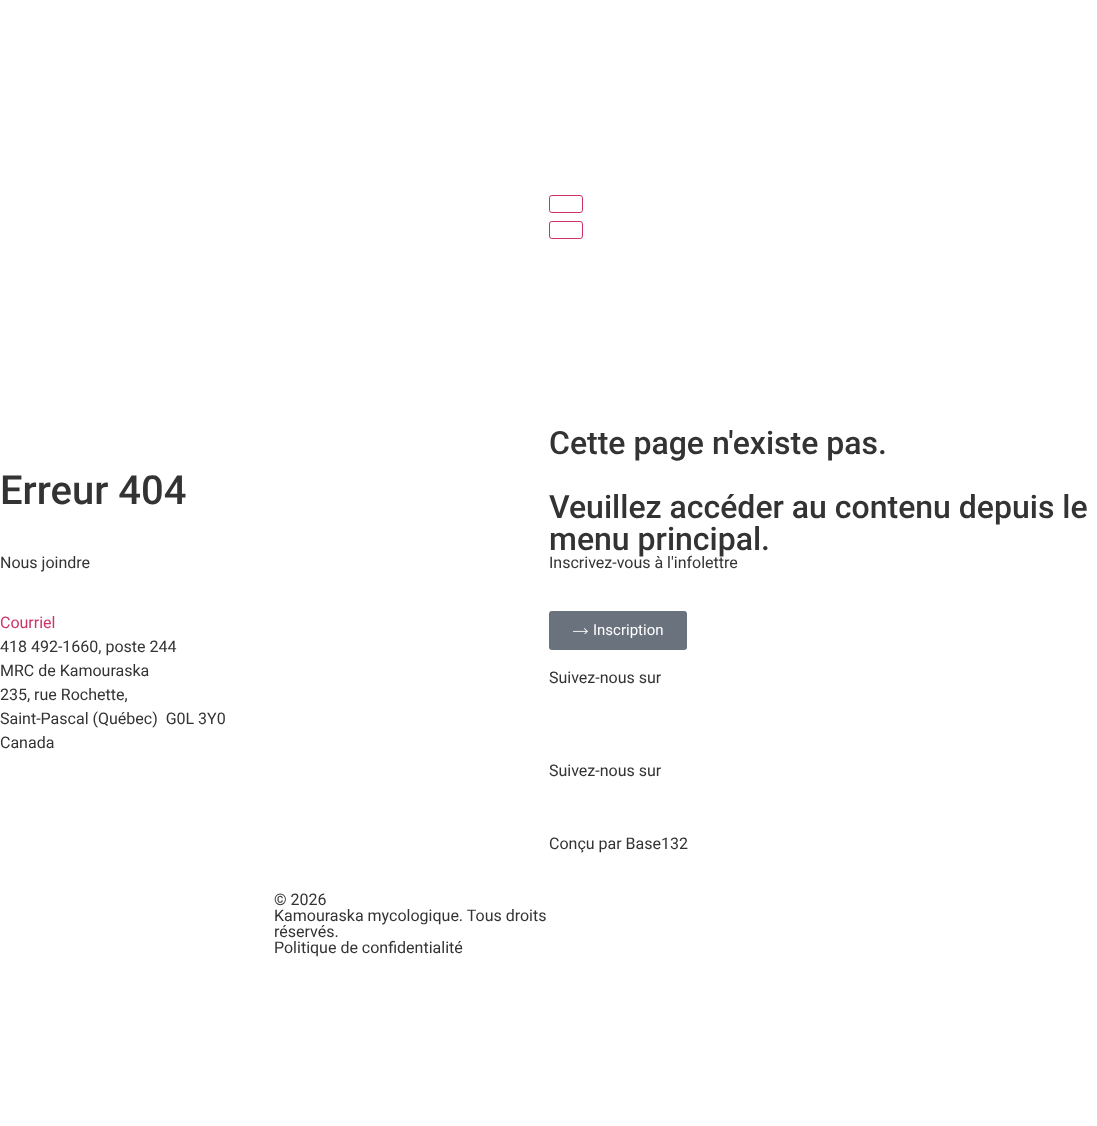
(async () => {
const canvas = document.querySelector("canvas")
canvas.width = 1097
canvas.height = 1126
const c = canvas.getContext("2d")
c.miterLimit = 4
c.fontKerning = "normal"
function T(s,x,y){c.fillText(s,x,y)}
function R(x,y,w,h){c.fillRect(x,y,w,h)}
function Q(x,y,w,h,r){c.beginPath();c.roundRect(x,y,w,h,r);c.fill()}
async function I(src,x,y,w,h){const img=new Image();img.src=src;await img.decode();c.drawImage(img,x,y,w,h)}
c.fillStyle="#fff"
R(0,0,1097,1126)
c.beginPath()
c.roundRect(549.5,195.5,33,17,2.5)
c.strokeStyle="#c36"
c.stroke()
c.beginPath()
c.roundRect(549.5,221.5,33,17,2.5)
c.stroke()
c.font="500 40px Roboto"
c.fillStyle="#333"
T("Erreur 404",0,504)
c.font="500 32px Roboto"
T("Cette page n'existe pas.",549,454)
T("Veuillez accéder au contenu depuis le",549,518)
T("menu principal.",549,550)
c.font="16px Roboto"
T("Nous joindre",0,568)
c.fillStyle="#c36"
T("Courriel",0,628)
c.fillStyle="#333"
T("418 492-1660, poste 244",0,652)
T("MRC de Kamouraska",0,676)
T("235, rue Rochette,",0,700)
T("Saint-Pascal (Québec)  G0L 3Y0",0,724)
T("Canada",0,748)
T("Inscrivez-vous à l'infolettre",549,568)
c.fillStyle="#69727d"
Q(549,611,138,39,3)
await I("1.png",573,628,15,6)
c.font="15px Roboto"
c.fillStyle="#fff"
T("Inscription",593,635)
c.font="16px Roboto"
c.fillStyle="#333"
T("Suivez-nous sur",549,683)
T("Suivez-nous sur",549,776)
T("Conçu par Base132",549,849)
T("© 2026",274,905)
T("Kamouraska mycologique. Tous droits",274,921)
T("réservés.",274,937)
T("Politique de confidentialité",274,953)
})()
